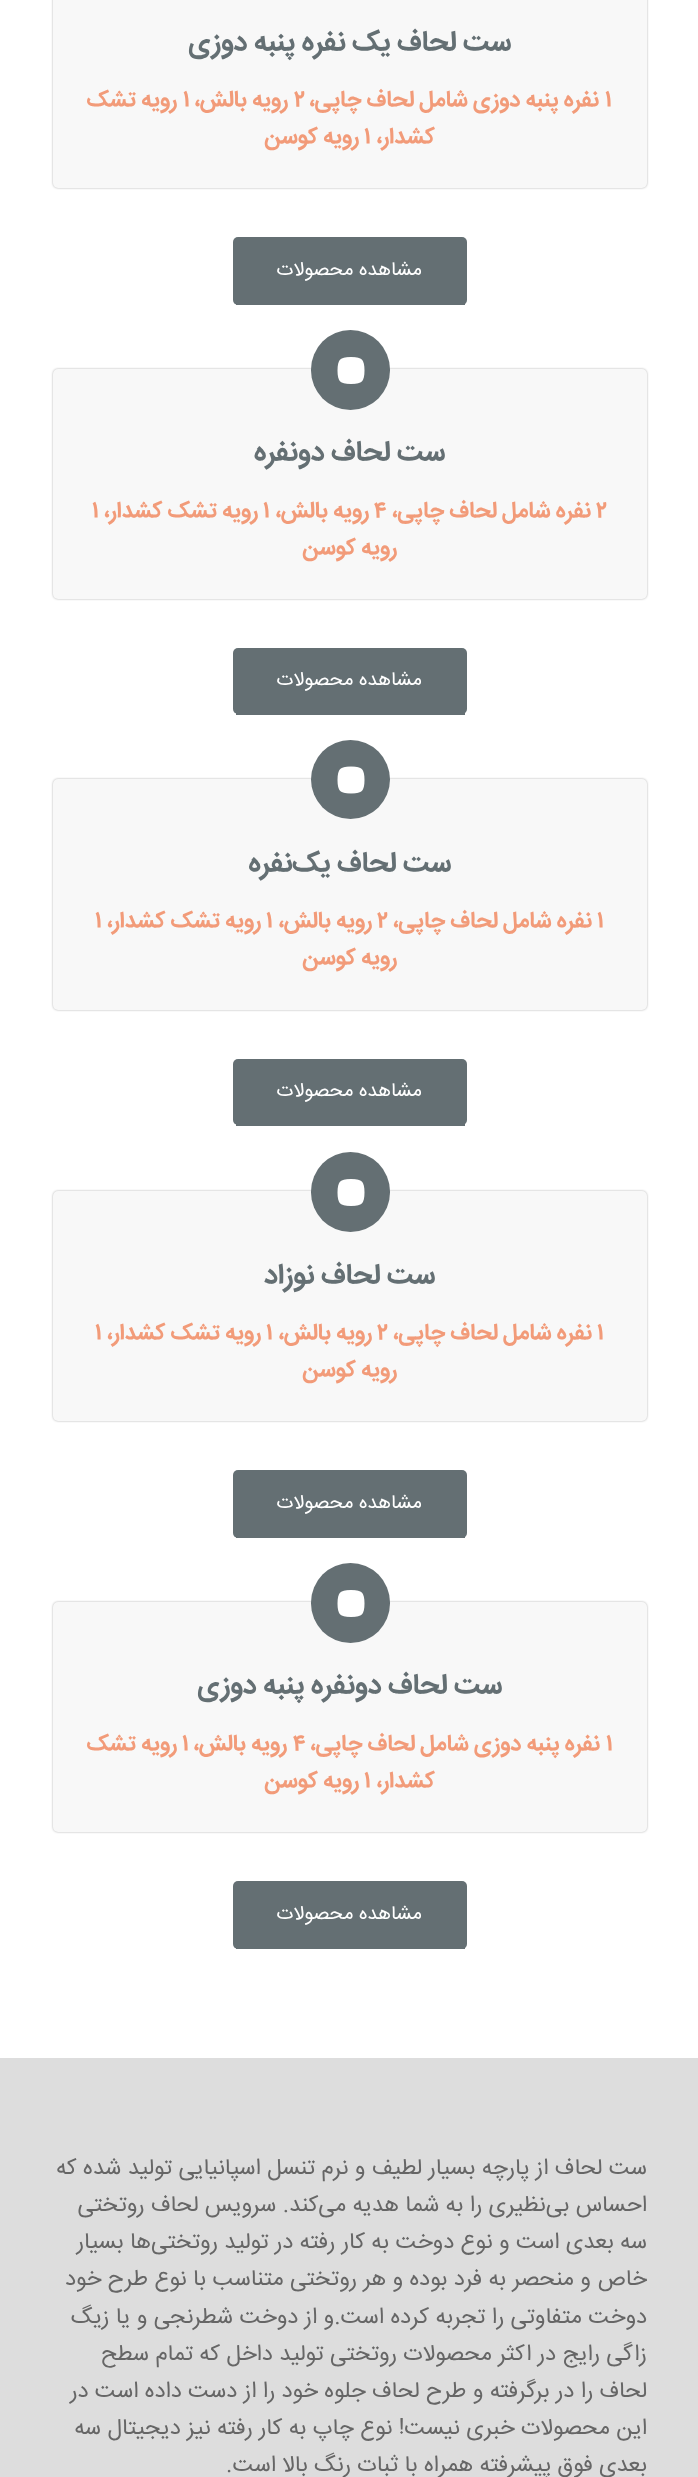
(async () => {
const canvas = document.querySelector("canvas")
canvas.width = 698
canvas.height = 2477
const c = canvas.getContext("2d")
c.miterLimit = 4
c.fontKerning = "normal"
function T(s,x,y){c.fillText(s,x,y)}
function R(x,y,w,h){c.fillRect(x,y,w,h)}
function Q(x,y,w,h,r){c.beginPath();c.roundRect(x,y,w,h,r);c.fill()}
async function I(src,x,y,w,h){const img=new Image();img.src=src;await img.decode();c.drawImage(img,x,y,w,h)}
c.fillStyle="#fff"
R(0,0,698,2477)
c.fillStyle="#0000004d"
c.filter="blur(1px)"
c.beginPath()
c.roundRect(53,-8,594,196,5)
c.fill()
c.filter="none"
c.fillStyle="#f8f8f8"
Q(53,-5,594,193,5)
c.direction="rtl"
c.font="bold 28.1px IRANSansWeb"
c.fillStyle="#646f73"
T("ست لحاف یک نفره پنبه دوزی",511,50)
c.direction="ltr"
c.font="bold 22.5px IRANSansWeb"
c.fillStyle="#f29b79"
T("۱",605,106)
c.direction="rtl"
T("نفره پنبه دوزی شامل لحاف چاپی،",599,106)
c.direction="ltr"
T("۲",294,106)
c.direction="rtl"
T("رویه بالش،",288,106)
c.direction="ltr"
T("۱",183,106)
c.direction="rtl"
T("رویه تشک",177,106)
T("کشدار،",435,143)
c.direction="ltr"
T("۱",364,143)
c.direction="rtl"
T("رویه کوسن",359,143)
c.fillStyle="#646f73"
Q(233,237,234,68,5)
R(236,304,229,1)
c.font="19.5px IRANSansWeb"
c.fillStyle="#fff"
T("مشاهده محصولات",422,275)
c.fillStyle="#0000004d"
c.filter="blur(1px)"
c.beginPath()
c.roundRect(53,369,594,230,5)
c.fill()
c.filter="none"
c.fillStyle="#f8f8f8"
Q(53,369,594,230,5)
c.fillStyle="#646f73"
Q(311,330,79,80,39.5)
await I("1.png",337,357,28,27)
c.font="bold 28.1px IRANSansWeb"
T("ست لحاف دو‌نفره",445,460)
c.direction="ltr"
c.font="bold 22.5px IRANSansWeb"
c.fillStyle="#f29b79"
T("۲",596,517)
c.direction="rtl"
T("نفره شامل لحاف چاپی،",591,517)
c.direction="ltr"
T("۴",374,517)
c.direction="rtl"
T("رویه بالش،",369,517)
c.direction="ltr"
T("۱",263,517)
c.direction="rtl"
T("رویه تشک کشدار،",258,517)
c.direction="ltr"
T("۱",92,517)
c.direction="rtl"
T("رویه کوسن",397,554)
c.fillStyle="#646f73"
Q(233,648,234,66,5)
R(236,713,229,2)
c.font="19.5px IRANSansWeb"
c.fillStyle="#fff"
T("مشاهده محصولات",422,685)
c.fillStyle="#0000004d"
c.filter="blur(1px)"
c.beginPath()
c.roundRect(53,779,594,231,5)
c.fill()
c.filter="none"
c.fillStyle="#f8f8f8"
Q(53,779,594,231,5)
c.fillStyle="#646f73"
c.beginPath()
c.arc(350.5,779.5,39.5,0,7)
c.fill()
await I("2.png",337,766,28,28)
c.font="bold 28.1px IRANSansWeb"
T("ست لحاف یک‌نفره",451,871)
c.direction="ltr"
c.font="bold 22.5px IRANSansWeb"
c.fillStyle="#f29b79"
T("۱",597,927)
c.direction="rtl"
T("نفره شامل لحاف چاپی،",592,927)
c.direction="ltr"
T("۲",377,927)
c.direction="rtl"
T("رویه بالش،",372,927)
c.direction="ltr"
T("۱",266,927)
c.direction="rtl"
T("رویه تشک کشدار،",261,927)
c.direction="ltr"
T("۱",95,927)
c.direction="rtl"
T("رویه کوسن",397,964)
c.fillStyle="#646f73"
Q(233,1059,234,66,5)
R(236,1124,229,2)
c.font="19.5px IRANSansWeb"
c.fillStyle="#fff"
T("مشاهده محصولات",422,1096)
c.fillStyle="#0000004d"
c.filter="blur(1px)"
c.beginPath()
c.roundRect(53,1191,594,230,5)
c.fill()
c.filter="none"
c.fillStyle="#f8f8f8"
Q(53,1191,594,230,5)
c.fillStyle="#646f73"
Q(311,1152,79,80,39.5)
await I("1.png",337,1179,28,27)
c.font="bold 28.1px IRANSansWeb"
T("ست لحاف نوزاد",435,1283)
c.direction="ltr"
c.font="bold 22.5px IRANSansWeb"
c.fillStyle="#f29b79"
T("۱",597,1339)
c.direction="rtl"
T("نفره شامل لحاف چاپی،",592,1339)
c.direction="ltr"
T("۲",377,1339)
c.direction="rtl"
T("رویه بالش،",372,1339)
c.direction="ltr"
T("۱",266,1339)
c.direction="rtl"
T("رویه تشک کشدار،",261,1339)
c.direction="ltr"
T("۱",95,1339)
c.direction="rtl"
T("رویه کوسن",397,1376)
c.fillStyle="#646f73"
Q(233,1470,234,68,5)
R(236,1537,229,1)
c.font="19.5px IRANSansWeb"
c.fillStyle="#fff"
T("مشاهده محصولات",422,1508)
c.fillStyle="#0000004d"
c.filter="blur(1px)"
c.beginPath()
c.roundRect(53,1602,594,230,5)
c.fill()
c.filter="none"
c.fillStyle="#f8f8f8"
Q(53,1602,594,230,5)
c.fillStyle="#646f73"
Q(311,1563,79,80,39.5)
await I("1.png",337,1590,28,27)
c.font="bold 28.1px IRANSansWeb"
T("ست لحاف دونفره پنبه دوزی",502,1693)
c.direction="ltr"
c.font="bold 22.5px IRANSansWeb"
c.fillStyle="#f29b79"
T("۱",606,1750)
c.direction="rtl"
T("نفره پنبه دوزی شامل لحاف چاپی،",600,1750)
c.direction="ltr"
T("۴",293,1750)
c.direction="rtl"
T("رویه بالش،",287,1750)
c.direction="ltr"
T("۱",182,1750)
c.direction="rtl"
T("رویه تشک",177,1750)
T("کشدار،",435,1787)
c.direction="ltr"
T("۱",364,1787)
c.direction="rtl"
T("رویه کوسن",359,1787)
c.fillStyle="#646f73"
Q(233,1881,234,68,5)
R(236,1948,229,1)
c.font="19.5px IRANSansWeb"
c.fillStyle="#fff"
T("مشاهده محصولات",422,1919)
c.fillStyle="#ddd"
R(0,2058,698,419)
c.font="22.5px IRANSansWeb"
c.fillStyle="#666"
T("ست لحاف از پارچه بسیار لطیف و نرم تنسل اسپانیایی تولید شده که",647,2174)
T("احساس بی‌نظیری را به شما هدیه می‌کند. سرویس لحاف روتختی",647,2211)
T("سه بعدی است و نوع دوخت به کار رفته در تولید روتختی‌ها بسیار",647,2248)
T("خاص و منحصر به فرد بوده و هر روتختی متناسب با نوع طرح خود",647,2285)
T("دوخت متفاوتی را تجربه کرده است.و از دوخت شطرنجی و یا زیگ",647,2323)
T("زاگی رایج در اکثر محصولات روتختی تولید داخل که تمام سطح",647,2360)
T("لحاف را در بر‌گرفته و طرح لحاف جلوه خود را از دست داده است در",647,2397)
T("این محصولات خبری نیست! نوع چاپ به کار رفته نیز دیجیتال سه",647,2434)
T("بعدی فوق پیشرفته همراه با ثبات رنگ بالا است.",647,2471)
})()
